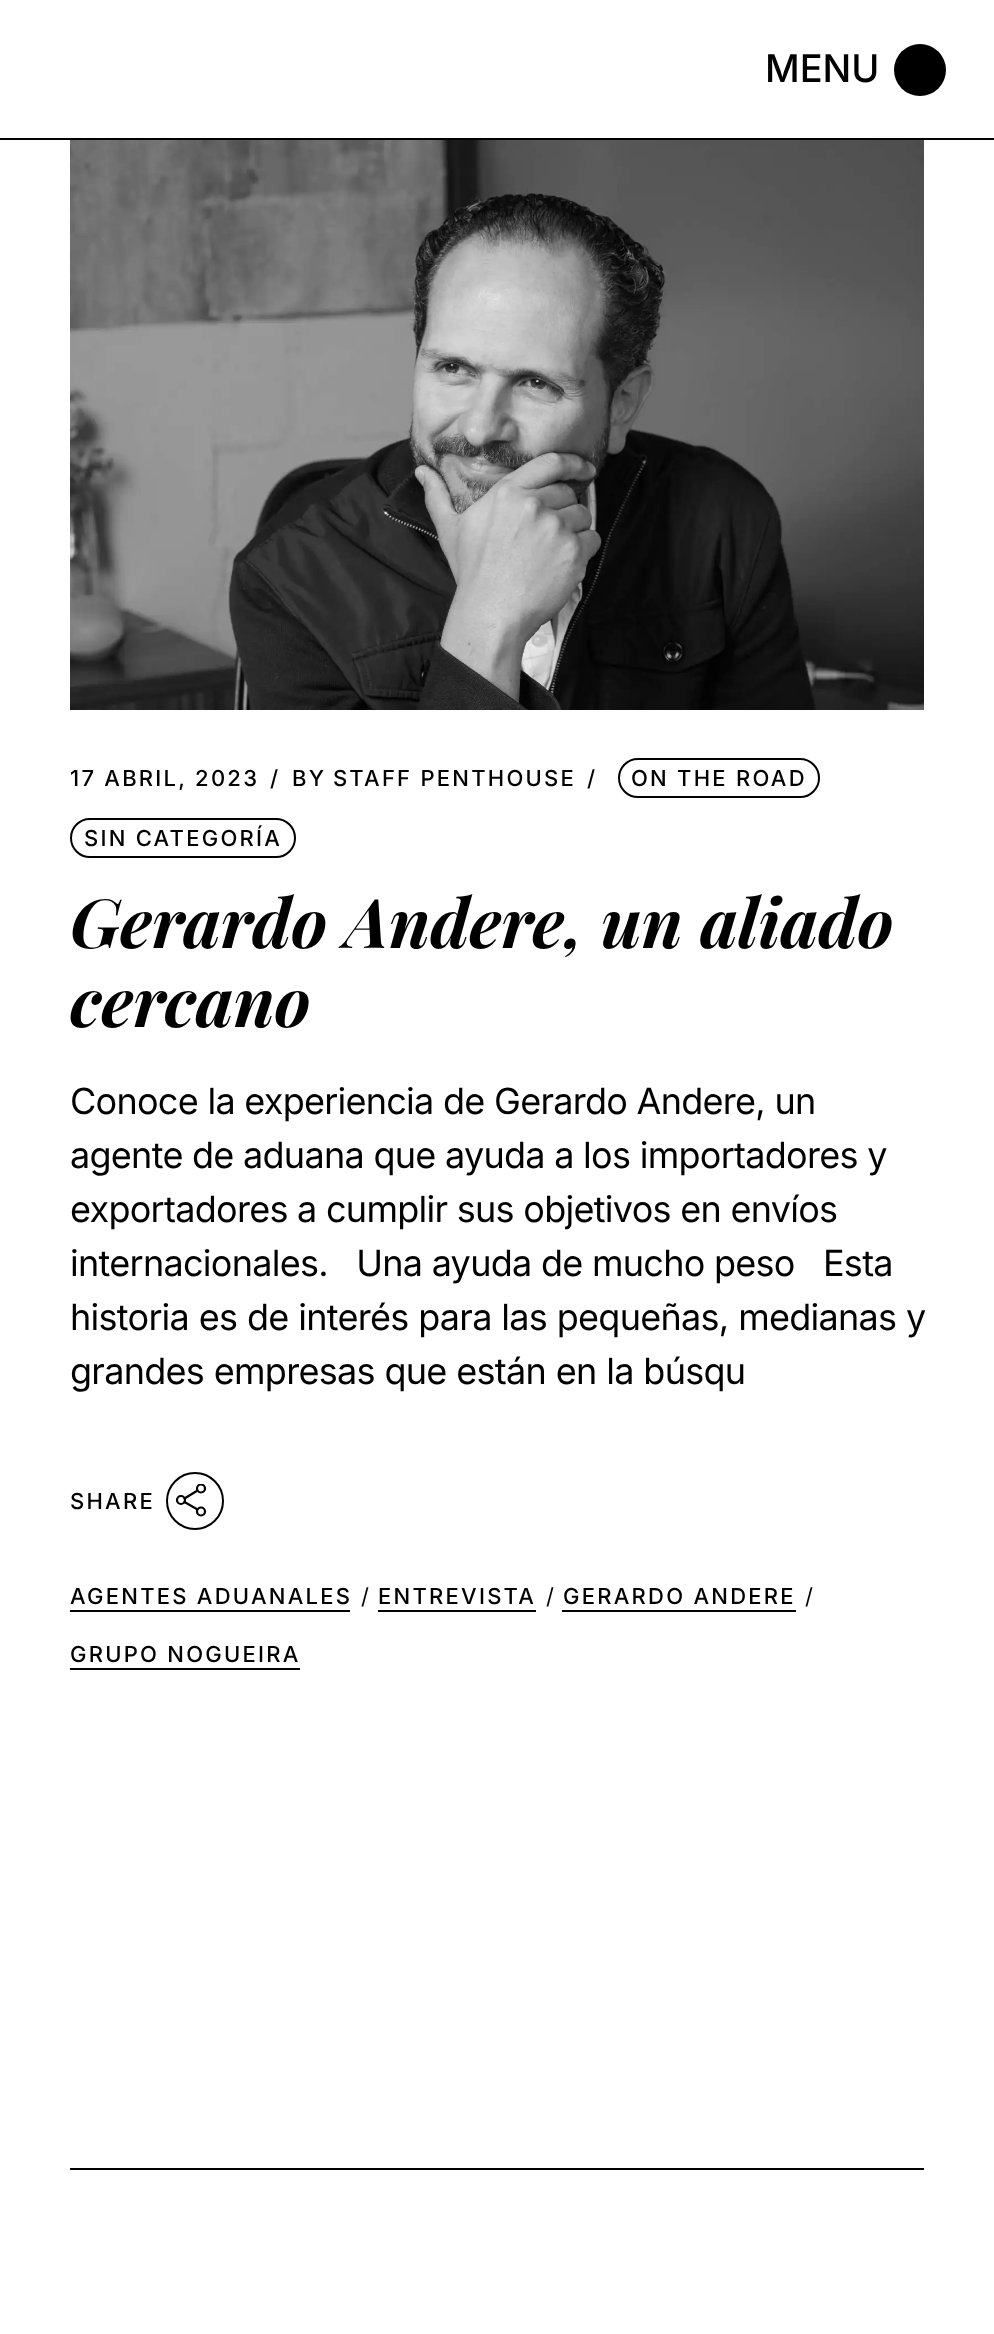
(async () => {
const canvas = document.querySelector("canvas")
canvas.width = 994
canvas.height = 2334
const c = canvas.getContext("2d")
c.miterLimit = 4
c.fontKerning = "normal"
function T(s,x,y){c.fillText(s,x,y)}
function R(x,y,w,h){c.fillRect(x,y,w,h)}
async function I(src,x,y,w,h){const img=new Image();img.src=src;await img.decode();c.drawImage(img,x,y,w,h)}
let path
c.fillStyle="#fff"
R(0,0,994,2334)
c.fillStyle="#000"
R(0,138,994,2)
c.font="500 38px Inter"
T("MENU",765,82)
c.beginPath()
c.arc(920,70,26,0,7)
c.fill()
await I("1.png",70,140,854,570)
c.letterSpacing="2.25px"
c.font="500 22px Inter"
T("17 ABRIL, 2023",70,786)
c.beginPath()
c.roundRect(619,759,200,38,19)
c.strokeStyle="#000"
c.lineWidth=2
c.stroke()
T("ON THE ROAD",631,786)
c.beginPath()
c.roundRect(71,819,224,38,19)
c.stroke()
T("SIN CATEGORÍA",84,846)
T("/",270,786)
T("BY",292,786)
T("STAFF PENTHOUSE",333,786)
T("/",587,786)
c.letterSpacing="0px"
c.font="italic bold 68px Playfair Display"
T("Gerardo Andere, un aliado",70,948)
T("cercano",70,1027)
c.letterSpacing="-0.72px"
c.font="36px Inter"
T("Conoce la experiencia de Gerardo Andere, un",70,1114)
T("agente de aduana que ayuda a los importadores y",70,1168)
T("exportadores a cumplir sus objetivos en envíos",70,1222)
T("internacionales.   Una ayuda de mucho peso   Esta",70,1276)
c.wordSpacing="0.25px"
T("historia es de interés para las pequeñas, medianas y",70,1330)
T("grandes empresas que están en la búsqu",70,1384)
c.letterSpacing="2.25px"
c.wordSpacing="0px"
c.font="500 22px Inter"
T("SHARE",70,1509)
c.beginPath()
c.arc(195,1501,28,0,7)
c.stroke()
c.beginPath()
c.arc(181,1500,4,0,7)
c.lineWidth=2.2
c.stroke()
c.save()
c.beginPath()
c.rect(176,1484,30,34)
c.clip()
c.beginPath()
c.arc(201,1488.5,4,0,7)
c.stroke()
c.restore()
c.beginPath()
c.arc(201,1511.5,4,0,7)
c.stroke()
path = new Path2D("M184.5 1502l13 7.5m0-19l-13 8")
c.lineCap="round"
c.lineJoin="round"
c.stroke(path)
T("AGENTES ADUANALES",70,1604)
R(70,1610,280,2)
c.letterSpacing="-0.72px"
c.font="22px Inter"
T("/",361,1604)
c.letterSpacing="2.25px"
c.font="500 22px Inter"
T("ENTREVISTA",378,1604)
R(378,1610,158,2)
c.letterSpacing="-0.72px"
c.font="22px Inter"
T("/",546,1604)
c.letterSpacing="2.25px"
c.font="500 22px Inter"
T("GERARDO ANDERE",563,1604)
R(562,1610,234,2)
c.letterSpacing="-0.72px"
c.font="22px Inter"
T("/",805,1604)
c.letterSpacing="2.25px"
c.font="500 22px Inter"
T("GRUPO NOGUEIRA",70,1662)
R(70,1668,230,2)
R(70,2168,854,2)
})()
